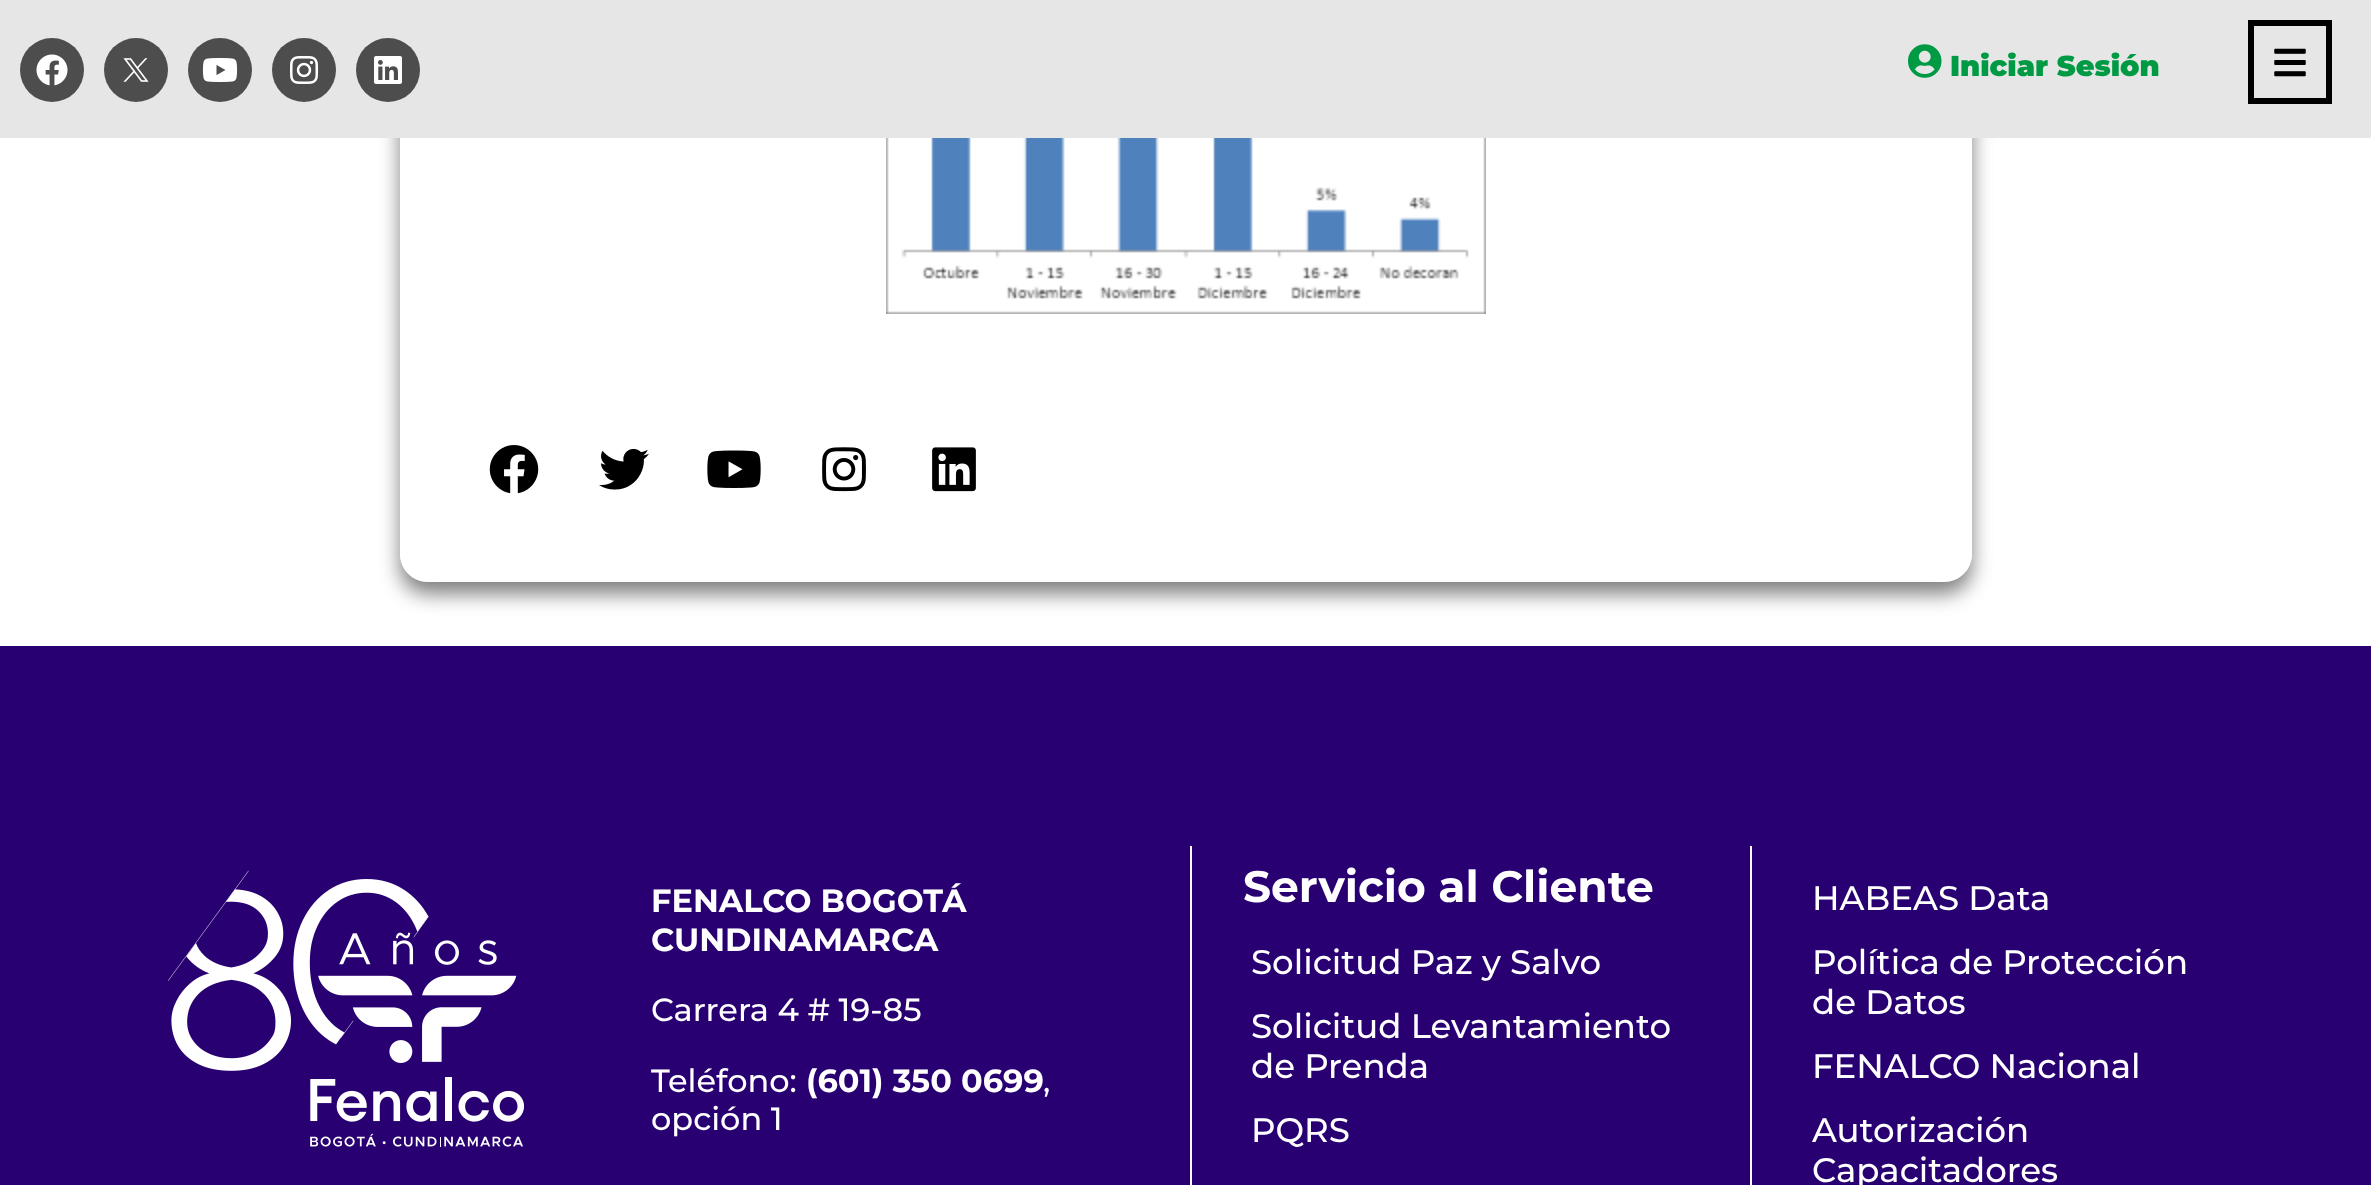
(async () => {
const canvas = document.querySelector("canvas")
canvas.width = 2371
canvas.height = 1185
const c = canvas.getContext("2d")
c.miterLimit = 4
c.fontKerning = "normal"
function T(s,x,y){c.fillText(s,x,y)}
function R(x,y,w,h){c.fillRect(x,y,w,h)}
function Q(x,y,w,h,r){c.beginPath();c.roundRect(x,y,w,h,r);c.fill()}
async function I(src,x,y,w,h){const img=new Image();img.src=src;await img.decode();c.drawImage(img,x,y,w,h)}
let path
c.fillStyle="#fff"
R(0,0,2371,1185)
c.save()
path = new Path2D("M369 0h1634v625h-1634zm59-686h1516c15.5 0 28 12.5 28 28v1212c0 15.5-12.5 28-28 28h-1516c-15.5 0-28-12.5-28-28v-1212c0-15.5 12.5-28 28-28z")
c.clip(path,"evenodd")
c.fillStyle="#00000080"
c.filter="blur(10px)"
c.beginPath()
c.roundRect(400,-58,1572,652,28)
c.fill()
c.filter="none"
c.restore()
c.fillStyle="#ffffffcc"
Q(400,-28,1572,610,28)
await I("1.png",886,138,600,176)
await I("2.png",489,445,50,49)
await I("3.png",599,448,50,42)
await I("4.png",707,450,54,38)
await I("5.png",822,447,44,45)
await I("6.png",932,447,44,45)
c.fillStyle="#e6e6e6"
R(0,0,2371,138)
c.fillStyle="#4d4d4d"
c.beginPath()
c.arc(52,70,32,0,7)
c.fill()
await I("7.png",36,54,32,32)
c.beginPath()
c.arc(136,70,32,0,7)
c.fill()
await I("8.png",123,58,26,24)
c.beginPath()
c.arc(220,70,32,0,7)
c.fill()
await I("9.png",202,58,36,24)
c.beginPath()
c.arc(304,70,32,0,7)
c.fill()
await I("10.png",290,55,29,29)
c.beginPath()
c.arc(388,70,32,0,7)
c.fill()
await I("11.png",374,56,28,28)
await I("12.png",1908,44,34,34)
c.font="900 28.75px Montserrat"
c.fillStyle="#009a44"
T("Iniciar Sesión",1950,76)
c.strokeStyle="#000"
c.lineWidth=6
c.strokeRect(2251,23,78,78)
await I("13.png",2274,48,32,29)
c.fillStyle="#280071"
R(0,646,2371,539)
await I("14.png",168,870,356,277)
c.font="bold 32px Montserrat"
c.fillStyle="#fff"
T("FENALCO BOGOTÁ",651,912)
T("CUNDINAMARCA",651,951)
c.font="500 32px Montserrat"
T("Carrera 4 # 19-85",651,1021)
T("Teléfono:",651,1092)
c.font="bold 32px Montserrat"
T("(601) 350 0699",806,1092)
c.font="500 32px Montserrat"
T(",",1043,1092)
T("opción 1",651,1130)
R(1190,846,2,339)
c.font="bold 44px Montserrat"
T("Servicio al Cliente",1243,902)
c.font="500 34px Montserrat"
T("Solicitud Paz y Salvo",1251,974)
T("Solicitud Levantamiento",1251,1038)
T("de Prenda",1251,1078)
T("PQRS",1251,1142)
R(1750,846,2,339)
T("HABEAS Data",1812,910)
T("Política de Protección",1812,974)
T("de Datos",1812,1014)
T("FENALCO Nacional",1812,1078)
T("Autorización",1812,1142)
T("Capacitadores",1812,1182)
})()
